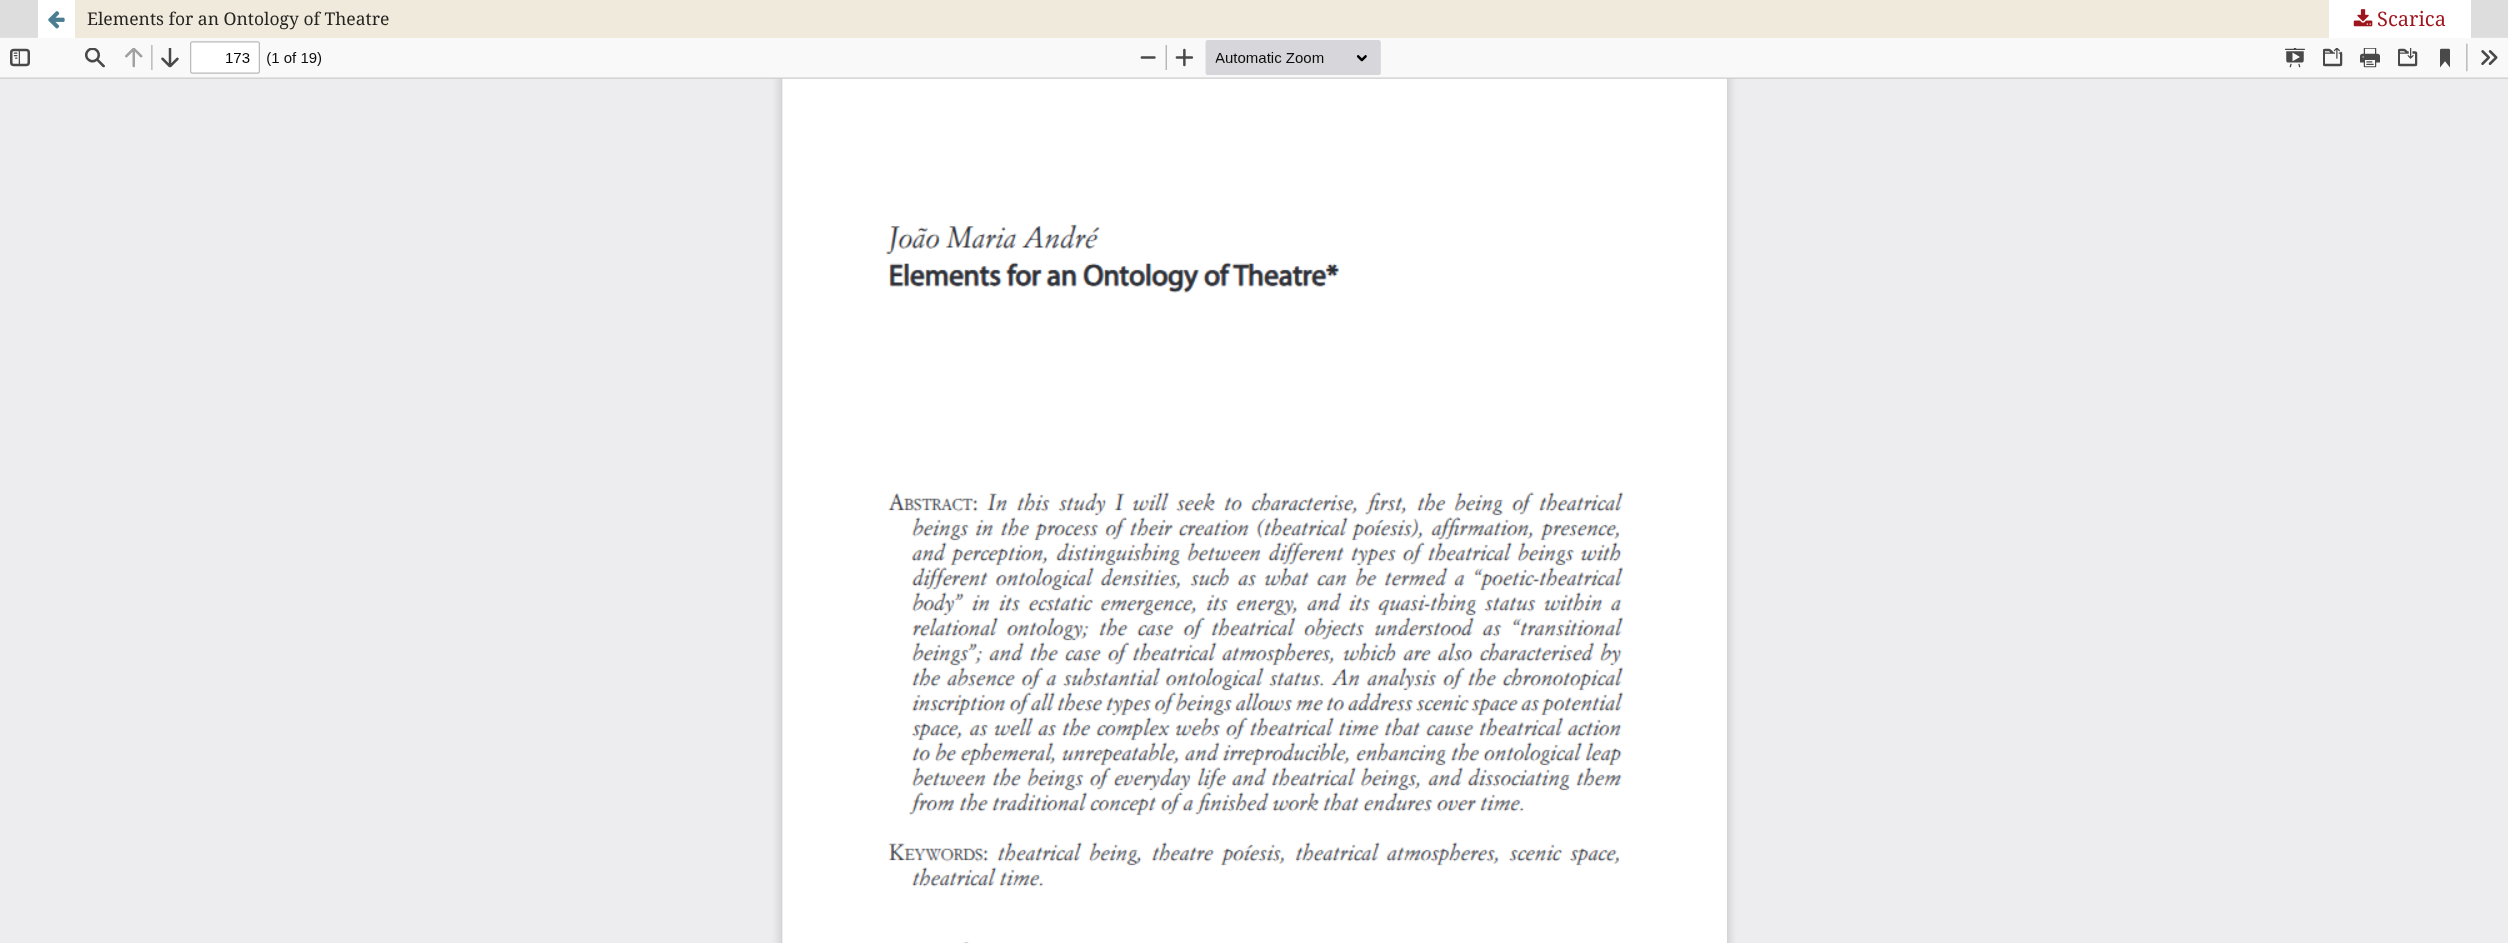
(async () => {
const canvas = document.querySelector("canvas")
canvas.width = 2508
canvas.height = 943
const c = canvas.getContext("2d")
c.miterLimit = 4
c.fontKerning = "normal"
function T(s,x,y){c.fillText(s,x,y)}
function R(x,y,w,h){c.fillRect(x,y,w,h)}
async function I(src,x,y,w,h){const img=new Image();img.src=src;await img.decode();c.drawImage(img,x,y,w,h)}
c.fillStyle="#ddd"
R(0,0,2508,943)
await I("3.png",0,37,2508,906)
c.fillStyle="#f0eadc"
R(75,0,2254,38)
c.fillStyle="#fff"
R(38,0,37,38)
await I("1.png",48,11,17,18)
c.font="17.5px Noto Serif"
c.fillStyle="#262523"
T("Elements for an Ontology of Theatre",87,25)
c.fillStyle="#fff"
R(2329,0,142,38)
await I("2.png",2353,9,20,18)
c.font="20px Noto Serif"
c.fillStyle="#9e151d"
T("Scarica",2377,26)
})()
